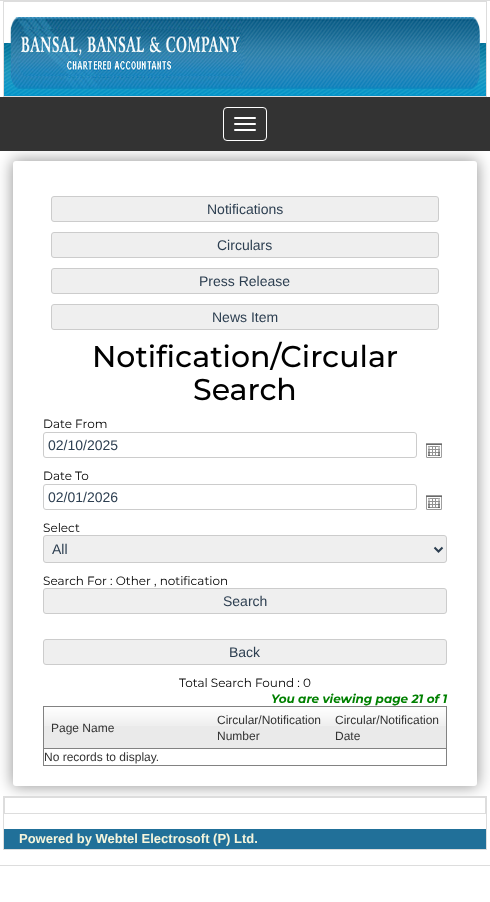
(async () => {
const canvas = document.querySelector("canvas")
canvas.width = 490
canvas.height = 902
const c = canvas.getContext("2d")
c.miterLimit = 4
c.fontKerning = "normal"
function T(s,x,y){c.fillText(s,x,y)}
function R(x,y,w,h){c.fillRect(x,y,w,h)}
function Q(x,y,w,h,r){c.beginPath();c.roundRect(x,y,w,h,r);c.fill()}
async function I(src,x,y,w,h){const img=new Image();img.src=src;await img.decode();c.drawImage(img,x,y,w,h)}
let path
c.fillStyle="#fff"
R(0,0,490,902)
c.strokeStyle="#ddd"
c.strokeRect(-.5,.5,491,865)
c.fillStyle="#ddd"
R(3,1,484,1)
R(486,1,1,96)
R(3,96,484,1)
R(3,1,1,96)
await I("1.png",4,15,482,81)
R(3,796,484,1)
R(486,796,1,54)
R(3,849,484,1)
R(3,796,1,54)
R(4,797,482,1)
R(485,797,1,17)
R(4,813,482,1)
R(4,797,1,17)
c.save()
c.beginPath()
c.rect(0,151,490,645)
c.clip()
c.fillStyle="#00000066"
c.filter="blur(7.5px)"
c.beginPath()
c.roundRect(12,160,466,627,4)
c.fill()
c.filter="none"
c.restore()
c.fillStyle="#333"
R(0,97,490,54)
c.beginPath()
c.roundRect(223.5,107.5,43,33,3.5)
c.strokeStyle="#fff"
c.stroke()
c.fillStyle="#fff"
Q(234,117,22,2,1)
Q(234,123,22,2,1)
Q(234,129,22,2,1)
Q(13,161,464,625,3)
c.fillStyle="#efefef"
c.beginPath()
c.roundRect(51.5,196.5,387,25,2.5)
c.fill()
c.strokeStyle="#ccc"
c.stroke()
c.font="14px Liberation Sans"
c.fillStyle="#2c3e50"
T("Notifications",207,214)
c.fillStyle="#efefef"
c.beginPath()
c.roundRect(51.5,232.5,387,25,2.5)
c.fill()
c.stroke()
c.fillStyle="#2c3e50"
T("Circulars",217,250)
c.fillStyle="#efefef"
c.beginPath()
c.roundRect(51.5,268.5,387,25,2.5)
c.fill()
c.stroke()
c.fillStyle="#2c3e50"
T("Press Release",199,286)
c.fillStyle="#efefef"
c.beginPath()
c.roundRect(51.5,304.5,387,25,2.5)
c.fill()
c.stroke()
c.fillStyle="#2c3e50"
T("News Item",212,322)
c.font="500 30px Montserrat"
c.fillStyle="#000"
T("Notification/Circular",92,367)
T("Search",193,400)
c.font="12px Montserrat"
T("Date From",43,428)
c.beginPath()
c.roundRect(43.5,432.5,373,25,2.5)
c.stroke()
c.font="14px Liberation Sans"
c.fillStyle="#2c3e50"
T("02/10/2025",48,450)
await I("2.png",426,443,16,15)
c.font="12px Montserrat"
c.fillStyle="#000"
T("Date To",43,480)
c.beginPath()
c.roundRect(43.5,484.5,373,25,2.5)
c.stroke()
c.font="14px Liberation Sans"
c.fillStyle="#2c3e50"
T("02/01/2026",48,502)
await I("2.png",426,495,16,15)
c.font="12px Montserrat"
c.fillStyle="#000"
T("Select",43,532)
c.fillStyle="#efefef"
c.beginPath()
c.roundRect(43.5,535.5,403,27,2.5)
c.fill()
c.stroke()
path = new Path2D("M434.5 547.5l4 4l4-4")
c.strokeStyle="#2c3e50"
c.lineWidth=2
c.stroke(path)
c.font="14px Liberation Sans"
c.fillStyle="#2c3e50"
T("All",52,554)
c.font="12px Montserrat"
c.fillStyle="#000"
T("Search For : Other , notification",43,585)
c.fillStyle="#efefef"
c.beginPath()
c.roundRect(43.5,588.5,403,25,2.5)
c.fill()
c.strokeStyle="#ccc"
c.lineWidth=1
c.stroke()
c.font="14px Liberation Sans"
c.fillStyle="#2c3e50"
T("Search",223,606)
c.fillStyle="#efefef"
c.beginPath()
c.roundRect(43.5,639.5,403,25,2.5)
c.fill()
c.stroke()
c.fillStyle="#2c3e50"
T("Back",229,657)
c.font="12px Montserrat"
c.fillStyle="#000"
T("Total Search Found : 0",179,687)
c.font="italic bold 12px Montserrat"
c.fillStyle="#008000"
T("You are viewing page 21 of 1",271,703)
c.strokeStyle="#828282"
c.strokeRect(43.5,706.5,403,59)
c.fillStyle="#eaeaea"
R(44,726,402,22)
await I("3.png",44,707,166,19)
c.fillStyle="#828282"
R(44,748,402,1)
c.font="12px Liberation Sans"
c.fillStyle="#333"
T("Page Name",51,732)
await I("4.png",210,707,118,19)
T("Circular/Notification",217,724)
T("Number",217,740)
await I("4.png",328,707,118,19)
T("Circular/Notification",335,724)
T("Date",335,740)
T("No records to display.",44,761)
c.fillStyle="#217099"
R(4,829,482,20)
c.font="bold 13px Liberation Sans"
c.fillStyle="#f5f5dc"
T("Powered by Webtel Electrosoft (P) Ltd.",19,843)
})()
